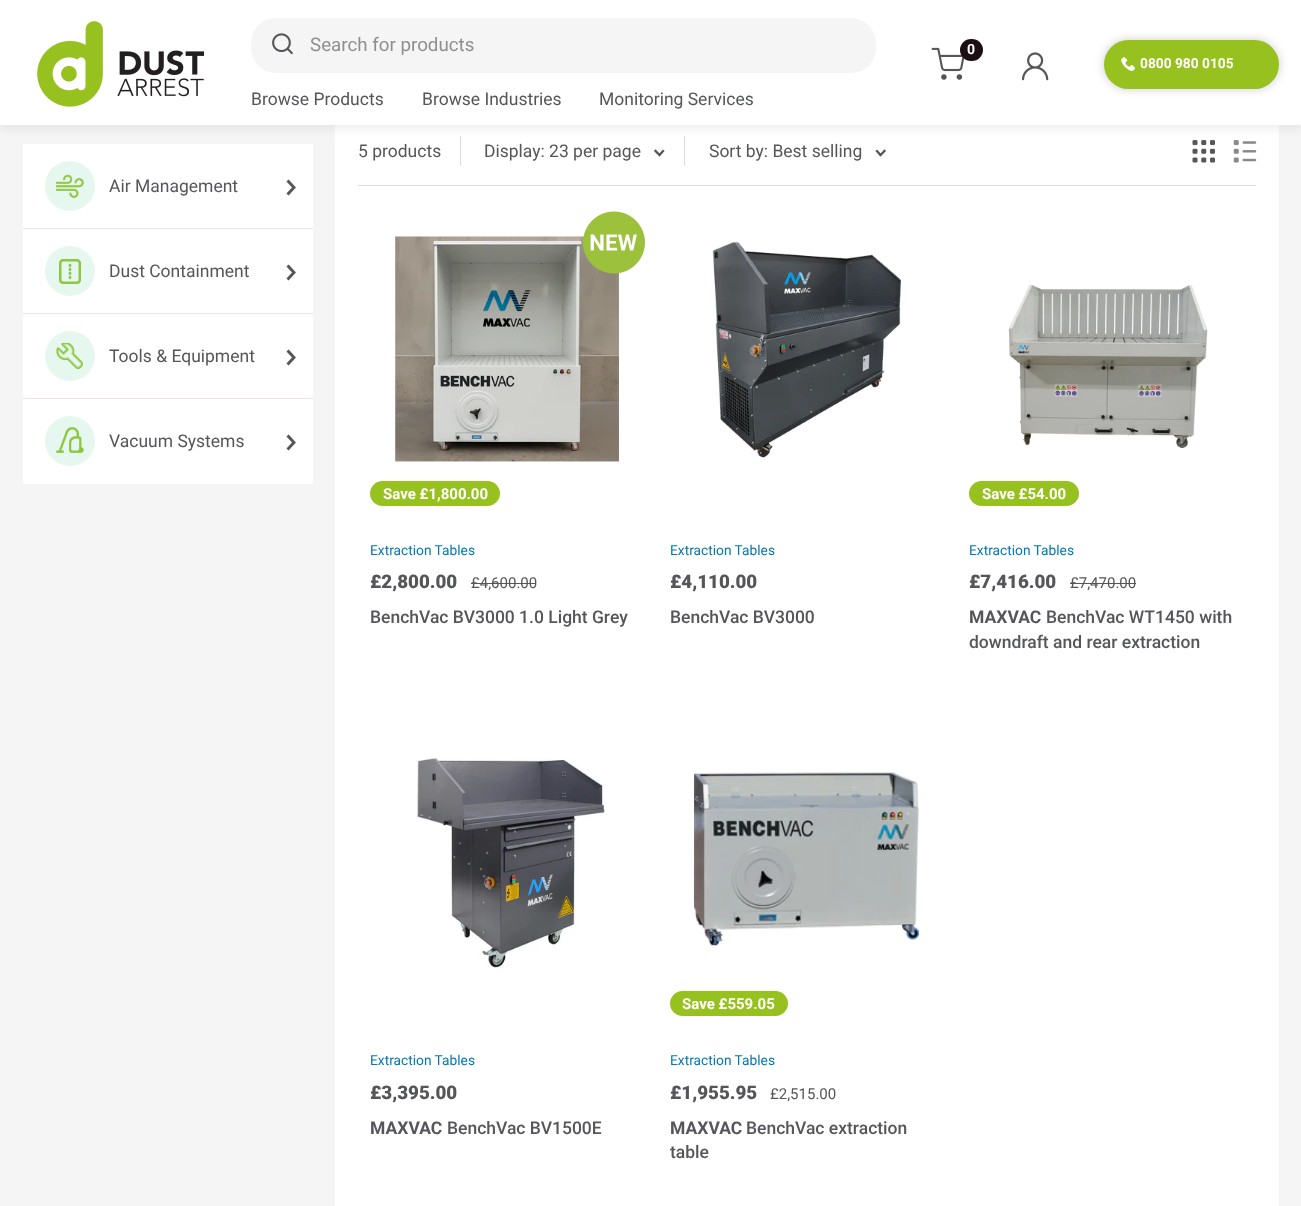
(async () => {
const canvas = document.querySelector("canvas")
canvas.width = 1301
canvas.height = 1206
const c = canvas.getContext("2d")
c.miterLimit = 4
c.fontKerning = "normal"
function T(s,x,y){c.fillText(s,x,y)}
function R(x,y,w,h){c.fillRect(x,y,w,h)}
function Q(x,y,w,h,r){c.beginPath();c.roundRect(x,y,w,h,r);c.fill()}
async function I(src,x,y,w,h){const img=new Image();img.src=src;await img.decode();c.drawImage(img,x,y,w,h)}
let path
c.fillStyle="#f5f5f5"
R(0,0,1301,1206)
c.fillStyle="#fff"
R(23,144,290,84)
R(335,125,944,1081)
c.fillStyle="#dddcdc"
R(460,136,1,30)
R(684,136,1,30)
await I("10.png",1192,140,23,23)
await I("11.png",1233,140,24,23)
c.fillStyle="#0000000f"
c.filter="blur(5px)"
c.beginPath()
c.rect(0,5,1301,125)
c.fill()
c.filter="none"
c.fillStyle="#fff"
R(0,0,1301,125)
await I("1.png",37,21,167,86)
c.fillStyle="#f5f5f5"
Q(251,18,625,55,25)
await I("2.png",272,33,21,22)
c.font="18.75px Roboto"
c.fillStyle="#8e8f91"
T("Search for products",310,51)
await I("3.png",931,47,34,33)
c.fillStyle="#1c0f13"
Q(960,39,23,22,11)
c.font="bold 14px Roboto"
c.fillStyle="#fff"
T("0",967,54)
await I("4.png",1021,52,28,29)
c.fillStyle="#00000033"
c.filter="blur(5px)"
c.beginPath()
c.roundRect(1104,40,175,49,24.5)
c.fill()
c.filter="none"
c.fillStyle="#97c11f"
Q(1104,40,175,49,24.5)
await I("5.png",1121,57,14,14)
c.font="bold 13.75px Roboto"
c.fillStyle="#fff"
T("0800 980 0105",1140,68)
c.font="17.5px Roboto"
c.fillStyle="#555659"
T("Browse Products",251,105)
T("Browse Industries",422,105)
T("Monitoring Services",599,105)
c.fillStyle="#ebe4e4"
R(23,228,290,1)
c.fillStyle="#e5f7ee"
c.beginPath()
c.arc(70,186,25,0,7)
c.fill()
await I("6.png",56,174,28,24)
c.fillStyle="#555659"
T("Air Management",109,192)
path = new Path2D("M288.5 181.5l5.5 6l-5.5 6")
c.strokeStyle="#555659"
c.lineWidth=2.9
c.lineCap="square"
c.stroke(path)
c.fillStyle="#fff"
R(23,229,290,84)
c.fillStyle="#ebe4e4"
R(23,313,290,1)
c.fillStyle="#e5f7ee"
c.beginPath()
c.arc(70,271,25,0,7)
c.fill()
await I("7.png",59,259,22,25)
c.fillStyle="#555659"
T("Dust Containment",109,277)
path = new Path2D("M288.5 266.5l5.5 6l-5.5 6")
c.stroke(path)
c.fillStyle="#fff"
R(23,314,290,84)
c.fillStyle="#ebe4e4"
R(23,398,290,1)
c.fillStyle="#e5f7ee"
c.beginPath()
c.arc(70,356,25,0,7)
c.fill()
await I("8.png",56,343,28,27)
c.fillStyle="#555659"
T("Tools & Equipment",109,362)
path = new Path2D("M288.5 351.5l5.5 6l-5.5 6")
c.stroke(path)
c.fillStyle="#fff"
R(23,399,290,85)
c.fillStyle="#e5f7ee"
c.beginPath()
c.arc(70,441,25,0,7)
c.fill()
await I("9.png",56,427,28,26)
c.fillStyle="#555659"
T("Vacuum Systems",109,447)
path = new Path2D("M288.5 436.5l5.5 6l-5.5 6")
c.stroke(path)
c.fillStyle="#dddcdc"
R(358,185,898,1)
c.fillStyle="#555659"
T("5 products",358,157)
T("Display: 23 per page",484,157)
path = new Path2D("M663 151l-3.5 4l-4-4")
c.lineWidth=2.3
c.stroke(path)
T("Sort by: Best selling",709,157)
path = new Path2D("M884.5 151l-4 4l-3.5-4")
c.stroke(path)
await I("13.png",395,236,224,226)
await I("12.png",583,211,62,63)
c.fillStyle="#97c11f"
Q(370,481,130,25,12.5)
c.font="bold 15px Roboto"
c.fillStyle="#fff"
T("Save £1,800.00",383,499)
c.font="13.75px Roboto"
c.fillStyle="#0378b2"
T("Extraction Tables",370,555)
c.font="900 18.75px Roboto"
c.fillStyle="#555659"
T("£2,800.00",370,588)
c.font="15px Roboto"
T("£4,600.00",471,588)
R(471,583,65,1)
c.font="500 17.5px Roboto"
T("BenchVac BV3000 1.0 Light Grey",370,623)
await I("14.png",712,241,189,217)
c.font="13.75px Roboto"
c.fillStyle="#0378b2"
T("Extraction Tables",670,555)
c.font="900 18.75px Roboto"
c.fillStyle="#555659"
T("£4,110.00",670,588)
c.font="500 17.5px Roboto"
T("BenchVac BV3000",670,623)
await I("15.png",1008,284,200,164)
c.fillStyle="#97c11f"
Q(969,481,110,25,12.5)
c.font="bold 15px Roboto"
c.fillStyle="#fff"
T("Save £54.00",982,499)
c.font="13.75px Roboto"
c.fillStyle="#0378b2"
T("Extraction Tables",969,555)
c.font="900 18.75px Roboto"
c.fillStyle="#555659"
T("£7,416.00",969,588)
c.font="15px Roboto"
T("£7,470.00",1070,588)
R(1070,583,66,1)
c.font="bold 17.5px Roboto"
T("MAXVAC",969,623)
c.font="500 17.5px Roboto"
T("BenchVac WT1450 with",1046,623)
T("downdraft and rear extraction",969,648)
await I("16.png",416,758,189,211)
c.font="13.75px Roboto"
c.fillStyle="#0378b2"
T("Extraction Tables",370,1065)
c.font="900 18.75px Roboto"
c.fillStyle="#555659"
T("£3,395.00",370,1099)
c.font="bold 17.5px Roboto"
T("MAXVAC",370,1134)
c.font="500 17.5px Roboto"
T("BenchVac BV1500E",447,1134)
await I("17.png",693,772,226,174)
c.fillStyle="#97c11f"
Q(670,991,118,25,12.5)
c.font="bold 15px Roboto"
c.fillStyle="#fff"
T("Save £559.05",682,1009)
c.font="13.75px Roboto"
c.fillStyle="#0378b2"
T("Extraction Tables",670,1065)
c.font="900 18.75px Roboto"
c.fillStyle="#555659"
T("£1,955.95",670,1099)
c.font="15px Roboto"
T("£2,515.00",770,1099)
c.font="bold 17.5px Roboto"
T("MAXVAC",670,1134)
c.font="500 17.5px Roboto"
T("BenchVac extraction",746,1134)
c.save()
c.beginPath()
c.rect(670,1116,274,49)
c.clip()
T("table",670,1158)
c.restore()
})()
